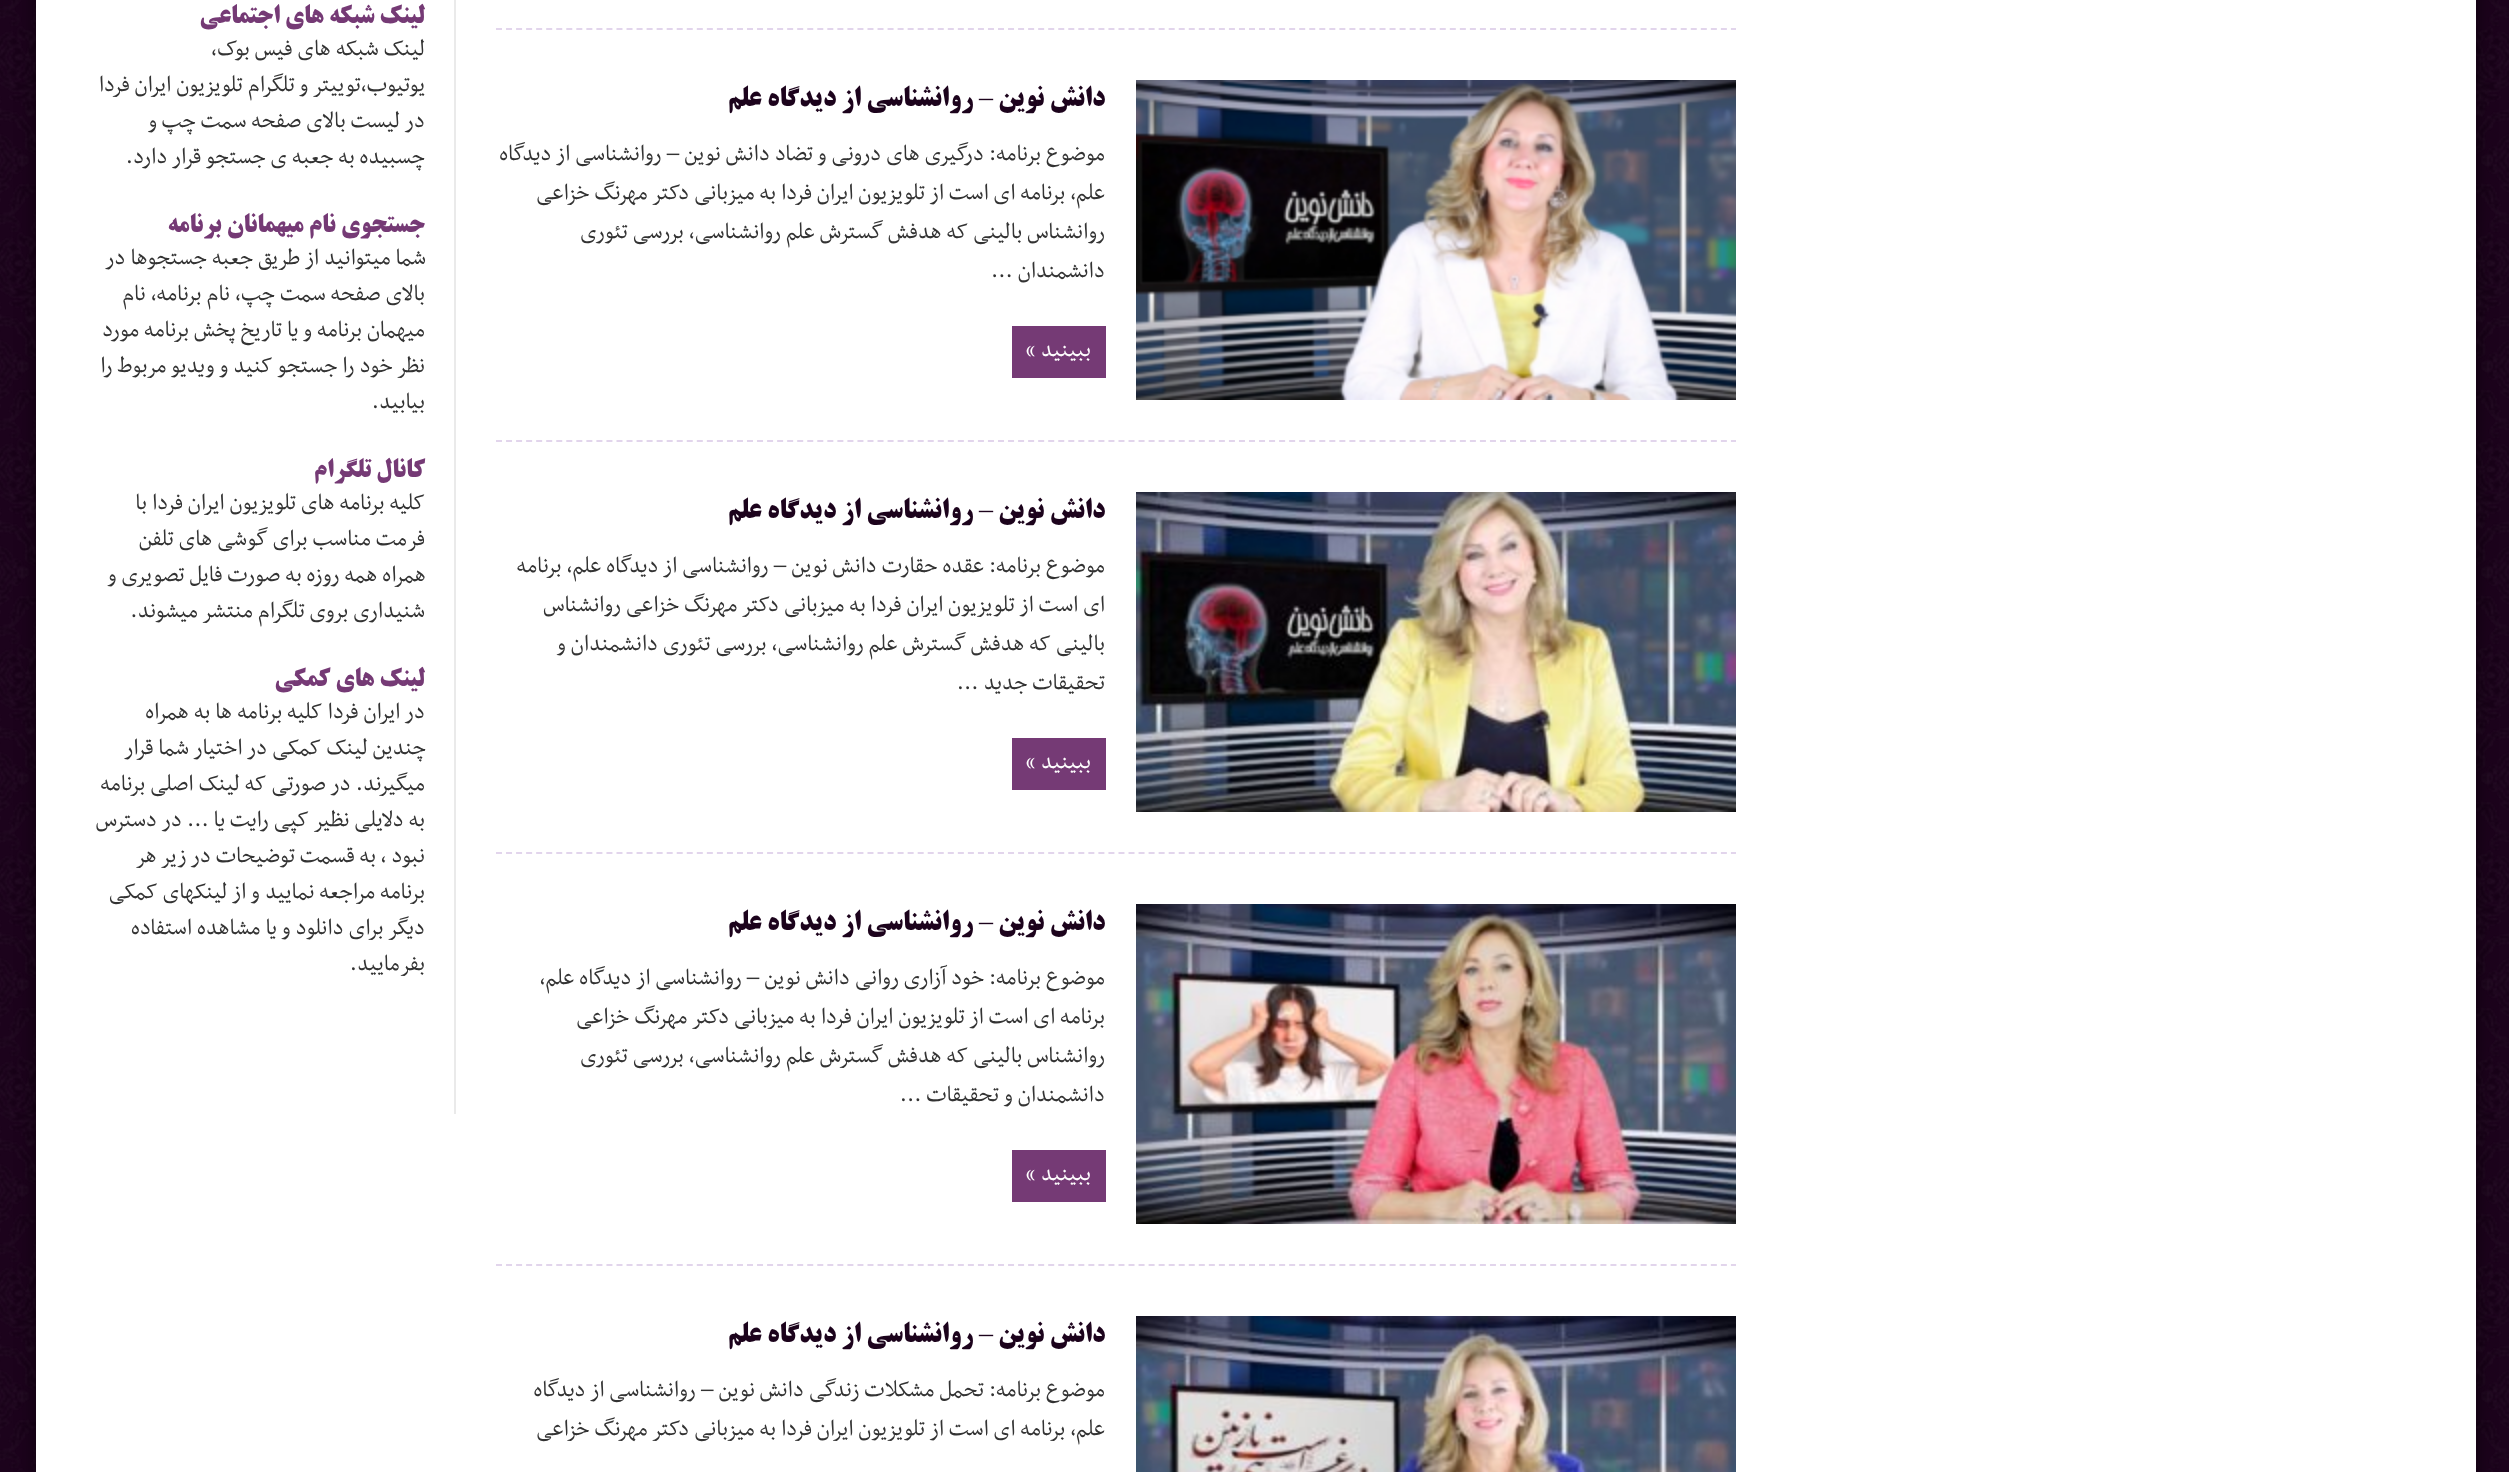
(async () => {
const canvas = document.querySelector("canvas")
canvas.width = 2509
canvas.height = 1472
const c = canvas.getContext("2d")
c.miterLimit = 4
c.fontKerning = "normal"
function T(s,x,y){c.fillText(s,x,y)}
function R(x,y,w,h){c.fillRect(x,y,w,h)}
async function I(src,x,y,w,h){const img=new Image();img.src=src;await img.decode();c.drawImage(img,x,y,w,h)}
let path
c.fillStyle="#1c031c"
R(0,0,2509,1472)
await I("1.png",0,0,2509,1472)
c.fillStyle="#00000080"
c.filter="blur(10px)"
c.beginPath()
c.rect(36,-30,2440,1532)
c.fill()
c.filter="none"
c.fillStyle="#fff"
R(36,0,2440,1472)
path = new Path2D("M496 29h1240")
c.strokeStyle="#e2d5ec"
c.lineWidth=2
c.setLineDash([6,4.04])
c.stroke(path)
path = new Path2D("M496 441h1240")
c.stroke(path)
await I("2.png",1136,80,600,320)
c.direction="rtl"
c.font="bold 28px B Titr"
c.fillStyle="#1c031c"
T("دانش نوین",1105,106)
c.font="28px Liberation Serif"
T("–",993,106)
c.font="bold 28px B Titr"
T("روانشناسی از دیدگاه علم",973,106)
c.font="26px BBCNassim"
c.fillStyle="#333"
T("موضوع برنامه: درگیری های درونی و تضاد دانش نوین – روانشناسی از دیدگاه",1105,160)
T("علم, برنامه ای است از تلویزیون ایران فردا به میزبانی دکتر مهرنگ خزاعی",1105,199)
T("روانشناس بالینی که هدفش گسترش علم روانشناسی, بررسی تئوری",1105,238)
T("دانشمندان ...",1105,277)
c.fillStyle="#753a75"
R(1012,326,94,52)
c.fillStyle="#fff"
T("ببینید »",1091,356)
path = new Path2D("M496 853h1240")
c.stroke(path)
await I("3.png",1136,492,600,320)
c.font="bold 28px B Titr"
c.fillStyle="#1c031c"
T("دانش نوین",1105,518)
c.font="28px Liberation Serif"
T("–",993,518)
c.font="bold 28px B Titr"
T("روانشناسی از دیدگاه علم",973,518)
c.font="26px BBCNassim"
c.fillStyle="#333"
T("موضوع برنامه: عقده حقارت دانش نوین – روانشناسی از دیدگاه علم, برنامه",1105,572)
T("ای است از تلویزیون ایران فردا به میزبانی دکتر مهرنگ خزاعی روانشناس",1105,611)
T("بالینی که هدفش گسترش علم روانشناسی, بررسی تئوری دانشمندان و",1105,650)
T("تحقیقات جدید ...",1105,689)
c.fillStyle="#753a75"
R(1012,738,94,52)
c.fillStyle="#fff"
T("ببینید »",1091,768)
path = new Path2D("M496 1265h1240")
c.stroke(path)
await I("4.png",1136,904,600,320)
c.font="bold 28px B Titr"
c.fillStyle="#1c031c"
T("دانش نوین",1105,930)
c.font="28px Liberation Serif"
T("–",993,930)
c.font="bold 28px B Titr"
T("روانشناسی از دیدگاه علم",973,930)
c.font="26px BBCNassim"
c.fillStyle="#333"
T("موضوع برنامه: خود آزاری روانی دانش نوین – روانشناسی از دیدگاه علم,",1105,984)
T("برنامه ای است از تلویزیون ایران فردا به میزبانی دکتر مهرنگ خزاعی",1105,1023)
T("روانشناس بالینی که هدفش گسترش علم روانشناسی, بررسی تئوری",1105,1062)
T("دانشمندان و تحقیقات ...",1105,1101)
c.fillStyle="#753a75"
R(1012,1150,94,52)
c.fillStyle="#fff"
T("ببینید »",1091,1180)
await I("5.png",1136,1316,600,156)
c.font="bold 28px B Titr"
c.fillStyle="#1c031c"
T("دانش نوین",1105,1342)
c.font="28px Liberation Serif"
T("–",993,1342)
c.font="bold 28px B Titr"
T("روانشناسی از دیدگاه علم",973,1342)
c.font="26px BBCNassim"
c.fillStyle="#333"
T("موضوع برنامه: تحمل مشکلات زندگی دانش نوین – روانشناسی از دیدگاه",1105,1396)
T("علم, برنامه ای است از تلویزیون ایران فردا به میزبانی دکتر مهرنگ خزاعی",1105,1435)
c.fillStyle="#eaeaea"
R(454,0,2,1114)
c.font="bold 26px B Titr"
c.fillStyle="#753a75"
T("لینک شبکه های اجتماعی",425,23)
c.font="26px BBCNassim"
c.fillStyle="#333"
T("لینک شبکه های فیس بوک،",425,55)
T("یوتیوب،توییتر و تلگرام تلویزیون ایران فردا",425,91)
T("در لیست بالای صفحه سمت چپ",425,127)
T("و",157,127)
T("چسبیده به جعبه ی جستجو قرار دارد.",425,163)
c.font="bold 26px B Titr"
c.fillStyle="#753a75"
T("جستجوی نام میهمانان برنامه",425,232)
c.font="26px BBCNassim"
c.fillStyle="#333"
T("شما میتوانید از طریق جعبه جستجوها در",426,264)
T("بالای صفحه سمت چپ، نام برنامه، نام",425,300)
T("میهمان برنامه و یا تاریخ پخش برنامه مورد",425,336)
T("نظر خود را جستجو کنید و ویدیو مربوط را",425,372)
T("بیابید.",425,408)
c.font="bold 26px B Titr"
c.fillStyle="#753a75"
T("کانال تلگرام",425,477)
c.font="26px BBCNassim"
c.fillStyle="#333"
T("کلیه برنامه های تلویزیون ایران فردا با",425,509)
T("فرمت مناسب برای گوشی های تلفن",425,545)
T("همراه همه روزه به صورت فایل تصویری و",426,581)
T("شنیداری بروی تلگرام منتشر میشوند.",425,617)
c.font="bold 26px B Titr"
c.fillStyle="#753a75"
T("لینک های کمکی",425,686)
c.font="26px BBCNassim"
c.fillStyle="#333"
T("در ایران فردا کلیه برنامه ها به همراه",425,718)
T("چندین لینک کمکی در اختیار شما قرار",426,754)
T("میگیرند. در صورتی که لینک اصلی برنامه",425,790)
T("به دلایلی نظیر کپی رایت یا ... در دسترس",425,826)
c.wordSpacing="-0.25px"
T("نبود ، به قسمت توضیحات در زیر هر",425,862)
c.wordSpacing="0px"
T("برنامه مراجعه نمایید و از لینکهای کمکی",425,898)
T("دیگر برای دانلود و یا مشاهده استفاده",425,934)
T("بفرمایید.",425,970)
})()
